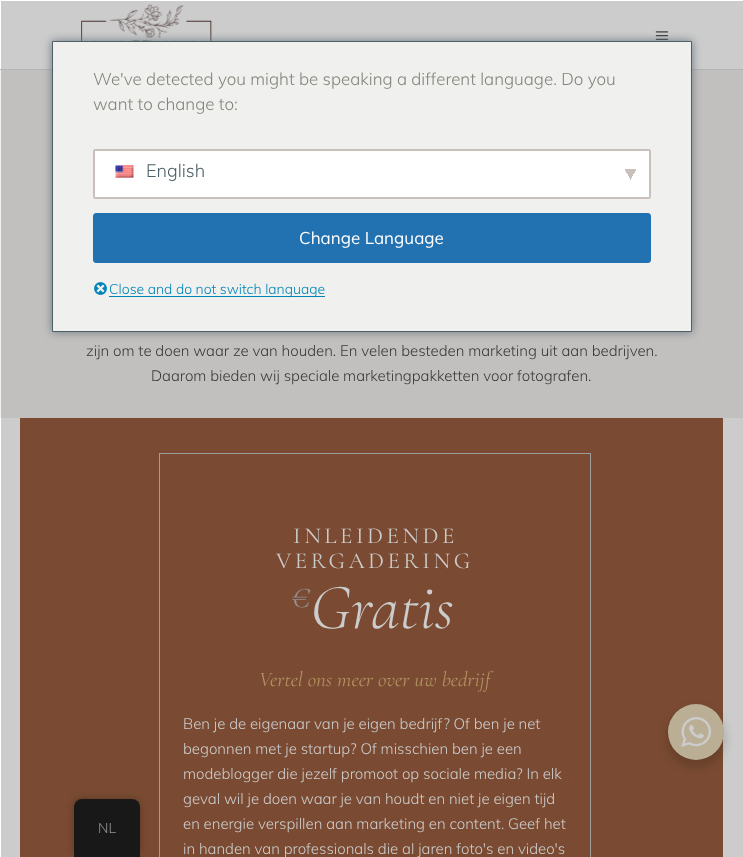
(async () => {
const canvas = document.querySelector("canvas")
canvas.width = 743
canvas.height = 857
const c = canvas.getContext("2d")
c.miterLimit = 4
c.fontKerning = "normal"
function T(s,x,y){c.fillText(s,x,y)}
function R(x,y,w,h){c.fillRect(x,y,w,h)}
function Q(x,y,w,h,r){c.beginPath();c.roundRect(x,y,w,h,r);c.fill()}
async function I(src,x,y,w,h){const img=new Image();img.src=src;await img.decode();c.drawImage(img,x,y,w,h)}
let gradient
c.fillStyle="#fff"
R(0,0,743,857)
c.fillStyle="#ccc"
R(1,1,742,856)
c.fillStyle="#b4b4b4"
R(0,69,743,1)
await I("3.png",72,4,149,37)
await I("4.png",655,31,14,9)
c.fillStyle="#c2c0be"
R(1,70,742,348)
c.fillStyle="#6c7781"
c.filter="blur(5px)"
c.beginPath()
c.rect(52,41,640,291)
c.fill()
c.filter="none"
c.fillStyle="#f0f0ee"
c.beginPath()
c.rect(52.5,41.5,639,290)
c.fill()
c.strokeStyle="#4c6066"
c.stroke()
c.font="300 17px Muli"
c.fillStyle="#84847c"
T("We've detected you might be speaking a different language. Do you",93,85)
T("want to change to:",93,110)
c.fillStyle="#fff"
Q(93,149,558,50,2)
gradient = c.createLinearGradient(629,172,638,177)
gradient.addColorStop(.5,"#c9c0bb")
gradient.addColorStop(.5,"#fff")
c.fillStyle = gradient
R(631,169,5,12)
gradient = c.createLinearGradient(623,177,632,172)
gradient.addColorStop(.5,"#fff")
gradient.addColorStop(.5,"#c9c0bb")
c.fillStyle = gradient
R(625,169,6,12)
c.beginPath()
c.roundRect(94,150,556,48,1)
c.strokeStyle="#c9c0bb"
c.lineWidth=2
c.stroke()
await I("1.png",115,165,19,13)
c.font="300 18px Muli"
c.fillStyle="#4c6066"
T("English",146,177)
c.fillStyle="#2271b1"
c.beginPath()
c.roundRect(93.5,213.5,557,49,2.5)
c.fill()
c.strokeStyle="#2271b1"
c.lineWidth=1
c.stroke()
c.font="17px Muli"
c.fillStyle="#fff"
T("Change Language",299,244)
await I("2.png",94,282,13,13)
c.fillStyle="#0085ba"
R(109,296,216,1)
c.font="300 14px Muli"
T("Close and do not switch language",109,294)
c.fillStyle="#f3f0ed"
R(0,70,1,348)
c.font="300 15px Muli"
c.fillStyle="#393939"
T("zijn om te doen waar ze van houden. En velen besteden marketing uit aan bedrijven.",86,356)
T("Daarom bieden wij speciale marketingpakketten voor fotografen.",151,381)
c.fillStyle="#7a4b32"
R(20,418,703,439)
c.strokeStyle="#9d9d9d"
c.strokeRect(159.5,453.5,431,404)
c.letterSpacing="3.5px"
c.font="23px Cormorant Garamond"
c.fillStyle="#ccc"
T("INLEIDENDE",293,543)
T("VERGADERING",276,568)
c.letterSpacing="0px"
c.font="italic 300 38px Cormorant Garamond"
c.fillStyle="#919191"
T("€",291,607)
c.font="italic 300 65px Cormorant Garamond"
c.fillStyle="#ccc"
T("Gratis",310,628)
c.font="italic 21px Cormorant Garamond"
c.fillStyle="#b19263"
T("Vertel ons meer over uw bedrijf",259,686)
c.font="300 15px Muli"
c.fillStyle="#ccc"
T("Ben je de eigenaar van je eigen bedrijf? Of ben je net",183,729)
T("begonnen met je startup? Of misschien ben je een",183,754)
T("modeblogger die jezelf promoot op sociale media? In elk",183,779)
T("geval wil je doen waar je van houdt en niet je eigen tijd",183,804)
T("en energie verspillen aan marketing en content. Geef het",183,829)
T("in handen van professionals die al jaren foto's en video's",183,854)
c.fillStyle="#00000024"
c.filter="blur(4px)"
c.beginPath()
c.roundRect(666,708,60,60,30)
c.fill()
c.filter="none"
c.fillStyle="#baae94"
c.beginPath()
c.arc(696,732,28,0,7)
c.fill()
await I("5.png",681,717,30,30)
c.fillStyle="#00000040"
c.filter="blur(4px)"
c.beginPath()
c.roundRect(74,799,66,58,8)
c.fill()
c.filter="none"
c.fillStyle="#181818"
c.beginPath()
c.roundRect(74,799,66,58,[8,8,0,0])
c.fill()
c.font="300 14px Muli"
c.fillStyle="#979797"
T("NL",98,833)
})()
